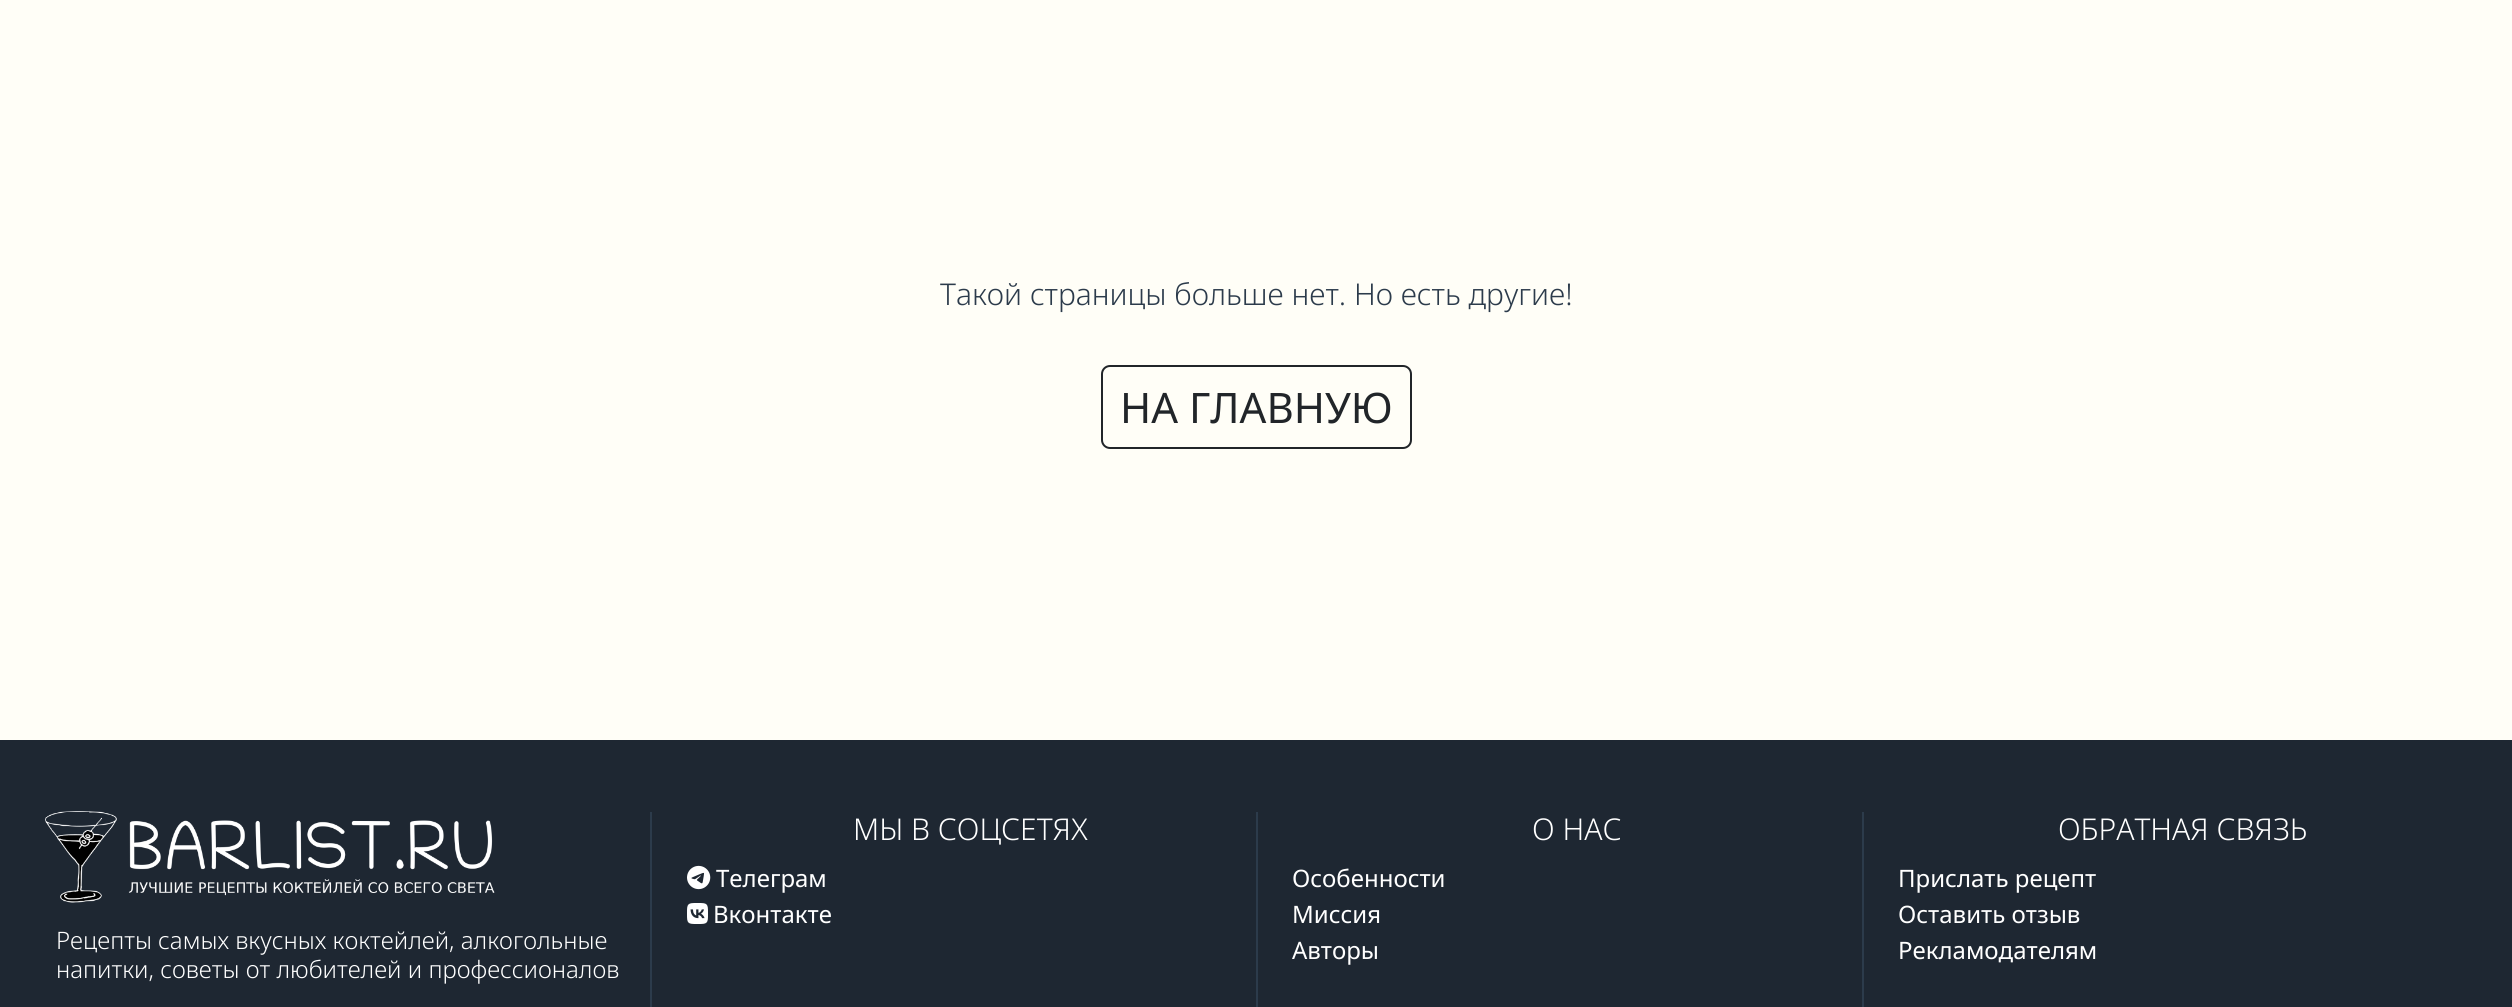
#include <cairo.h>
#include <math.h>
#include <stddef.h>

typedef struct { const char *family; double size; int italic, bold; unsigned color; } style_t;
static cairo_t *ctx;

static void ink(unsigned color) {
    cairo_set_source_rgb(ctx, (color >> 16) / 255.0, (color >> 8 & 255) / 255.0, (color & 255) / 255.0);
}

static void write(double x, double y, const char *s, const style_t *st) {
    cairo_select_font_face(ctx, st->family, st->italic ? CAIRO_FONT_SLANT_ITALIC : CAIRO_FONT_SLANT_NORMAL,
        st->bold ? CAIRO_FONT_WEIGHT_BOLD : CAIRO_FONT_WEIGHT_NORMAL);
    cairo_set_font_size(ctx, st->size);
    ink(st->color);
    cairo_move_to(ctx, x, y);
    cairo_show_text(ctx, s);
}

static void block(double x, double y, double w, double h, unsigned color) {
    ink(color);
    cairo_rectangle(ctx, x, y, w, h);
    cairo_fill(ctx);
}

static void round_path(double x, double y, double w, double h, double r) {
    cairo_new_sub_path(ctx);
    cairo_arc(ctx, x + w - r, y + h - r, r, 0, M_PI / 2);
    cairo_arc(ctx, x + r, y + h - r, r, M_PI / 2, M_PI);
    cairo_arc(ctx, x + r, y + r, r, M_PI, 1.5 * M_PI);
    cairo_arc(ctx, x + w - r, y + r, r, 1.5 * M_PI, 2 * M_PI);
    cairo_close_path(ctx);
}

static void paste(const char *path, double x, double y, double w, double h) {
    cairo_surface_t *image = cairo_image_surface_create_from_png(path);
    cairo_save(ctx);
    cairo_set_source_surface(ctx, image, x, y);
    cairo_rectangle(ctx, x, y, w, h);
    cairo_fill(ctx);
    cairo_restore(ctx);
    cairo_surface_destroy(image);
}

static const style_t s1 = {"Noto Sans Light", 30, 0, 0, 0x2c3b4b};
static const style_t s2 = {"Noto Sans", 42, 0, 0, 0x212529};
static const style_t s3 = {"Noto Sans Light", 24, 0, 0, 0xffffff};
static const style_t s4 = {"Noto Sans Light", 30, 0, 0, 0xffffff};
static const style_t s5 = {"Noto Sans", 24, 0, 0, 0xffffff};

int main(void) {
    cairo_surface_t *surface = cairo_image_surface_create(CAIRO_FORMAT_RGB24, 2512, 1007);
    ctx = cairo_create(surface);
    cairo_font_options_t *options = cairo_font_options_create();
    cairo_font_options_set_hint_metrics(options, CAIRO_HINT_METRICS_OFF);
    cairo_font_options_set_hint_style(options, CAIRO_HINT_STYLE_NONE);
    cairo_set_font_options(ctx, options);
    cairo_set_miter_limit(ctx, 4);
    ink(0xfffef7);
    cairo_paint(ctx);
    write(940, 305, "Такой страницы больше нет. Но есть другие!", &s1);
    round_path(1102, 366, 309, 82, 8);
    ink(0x212529);
    cairo_stroke(ctx);
    write(1120, 423, "НА ГЛАВНУЮ", &s2);
    block(0, 740, 2512, 267, 0x1e2732);
    block(650, 812, 2, 195, 0x2c3b4b);
    paste("pic1.png", 45, 811, 450, 92);
    write(56, 949, "Рецепты самых вкусных коктейлей, алкогольные", &s3);
    write(56, 978, "напитки, советы от любителей и профессионалов", &s3);
    block(1256, 812, 2, 195, 0x2c3b4b);
    write(853, 840, "МЫ В СОЦСЕТЯХ", &s4);
    paste("pic2.png", 687, 865, 24, 25);
    write(716, 887, "Телеграм", &s5);
    paste("pic3.png", 687, 903, 21, 21);
    write(713, 923, "Вконтакте", &s5);
    block(1862, 812, 2, 195, 0x2c3b4b);
    write(1532, 840, "О НАС", &s4);
    write(1292, 887, "Особенности", &s5);
    write(1292, 923, "Миссия", &s5);
    write(1292, 959, "Авторы", &s5);
    write(2058, 840, "ОБРАТНАЯ СВЯЗЬ", &s4);
    write(1898, 887, "Прислать рецепт", &s5);
    write(1898, 923, "Оставить отзыв", &s5);
    write(1898, 959, "Рекламодателям", &s5);
    cairo_surface_write_to_png(surface, "screenshot.png");
    cairo_font_options_destroy(options);
    cairo_destroy(ctx);
    cairo_surface_destroy(surface);
    return 0;
}
